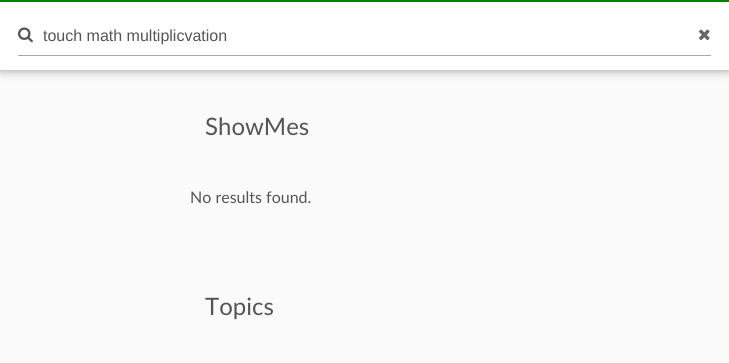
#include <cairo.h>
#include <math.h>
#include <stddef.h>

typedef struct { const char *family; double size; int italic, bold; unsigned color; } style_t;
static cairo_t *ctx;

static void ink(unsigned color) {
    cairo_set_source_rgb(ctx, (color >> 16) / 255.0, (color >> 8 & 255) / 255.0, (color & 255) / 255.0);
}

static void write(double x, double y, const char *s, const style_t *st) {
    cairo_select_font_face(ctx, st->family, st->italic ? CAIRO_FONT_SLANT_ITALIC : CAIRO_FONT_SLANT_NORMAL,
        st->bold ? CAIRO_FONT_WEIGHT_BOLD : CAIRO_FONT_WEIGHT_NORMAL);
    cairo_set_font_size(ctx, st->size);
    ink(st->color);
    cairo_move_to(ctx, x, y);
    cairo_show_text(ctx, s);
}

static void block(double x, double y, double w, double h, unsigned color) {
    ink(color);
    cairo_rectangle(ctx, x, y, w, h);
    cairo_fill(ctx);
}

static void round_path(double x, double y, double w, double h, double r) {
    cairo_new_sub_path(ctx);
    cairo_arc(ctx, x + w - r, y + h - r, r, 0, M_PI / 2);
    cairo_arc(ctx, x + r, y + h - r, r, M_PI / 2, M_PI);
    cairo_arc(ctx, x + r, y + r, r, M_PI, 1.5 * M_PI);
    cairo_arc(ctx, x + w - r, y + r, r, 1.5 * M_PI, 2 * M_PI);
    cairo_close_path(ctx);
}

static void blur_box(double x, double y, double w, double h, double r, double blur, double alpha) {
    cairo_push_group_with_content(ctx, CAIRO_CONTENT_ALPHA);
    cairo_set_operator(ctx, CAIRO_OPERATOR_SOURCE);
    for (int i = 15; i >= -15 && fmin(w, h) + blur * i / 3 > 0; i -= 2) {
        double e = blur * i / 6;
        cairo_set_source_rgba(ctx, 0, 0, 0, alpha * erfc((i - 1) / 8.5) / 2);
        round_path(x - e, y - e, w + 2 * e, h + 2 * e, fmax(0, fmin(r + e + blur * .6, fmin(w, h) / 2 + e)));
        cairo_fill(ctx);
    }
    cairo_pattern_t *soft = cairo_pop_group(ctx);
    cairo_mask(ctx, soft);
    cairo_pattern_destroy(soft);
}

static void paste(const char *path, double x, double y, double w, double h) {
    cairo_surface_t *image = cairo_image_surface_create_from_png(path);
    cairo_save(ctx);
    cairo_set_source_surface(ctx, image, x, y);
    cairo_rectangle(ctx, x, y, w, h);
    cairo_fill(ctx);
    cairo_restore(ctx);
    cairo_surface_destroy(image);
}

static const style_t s1 = {"Liberation Sans", 16, 0, 0, 0x555555};
static const style_t s2 = {"Lato", 24, 0, 0, 0x555555};
static const style_t s3 = {"Lato", 16, 0, 0, 0x555555};

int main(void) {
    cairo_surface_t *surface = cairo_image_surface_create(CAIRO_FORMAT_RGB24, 729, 363);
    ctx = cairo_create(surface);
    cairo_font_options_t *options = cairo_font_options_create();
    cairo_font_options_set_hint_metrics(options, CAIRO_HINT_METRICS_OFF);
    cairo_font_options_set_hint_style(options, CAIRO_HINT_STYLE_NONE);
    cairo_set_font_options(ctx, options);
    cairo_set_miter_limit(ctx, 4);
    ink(0xfafafa);
    cairo_paint(ctx);
    ink(0x000000);
    blur_box(0, 0, 729, 70, 0, 5, 0.4);
    block(0, 0, 729, 2, 0x008000);
    block(0, 2, 729, 68, 0xffffff);
    paste("pic1.png", 18, 27, 15, 16);
    block(18, 55, 693, 1, 0xaaaaaa);
    write(43, 41, "touch math multiplicvation", &s1);
    paste("pic2.png", 699, 29, 11, 12);
    write(205, 135, "ShowMes", &s2);
    write(190, 203, "No results found.", &s3);
    write(205, 315, "Topics", &s2);
    cairo_surface_write_to_png(surface, "screenshot.png");
    cairo_font_options_destroy(options);
    cairo_destroy(ctx);
    cairo_surface_destroy(surface);
    return 0;
}
